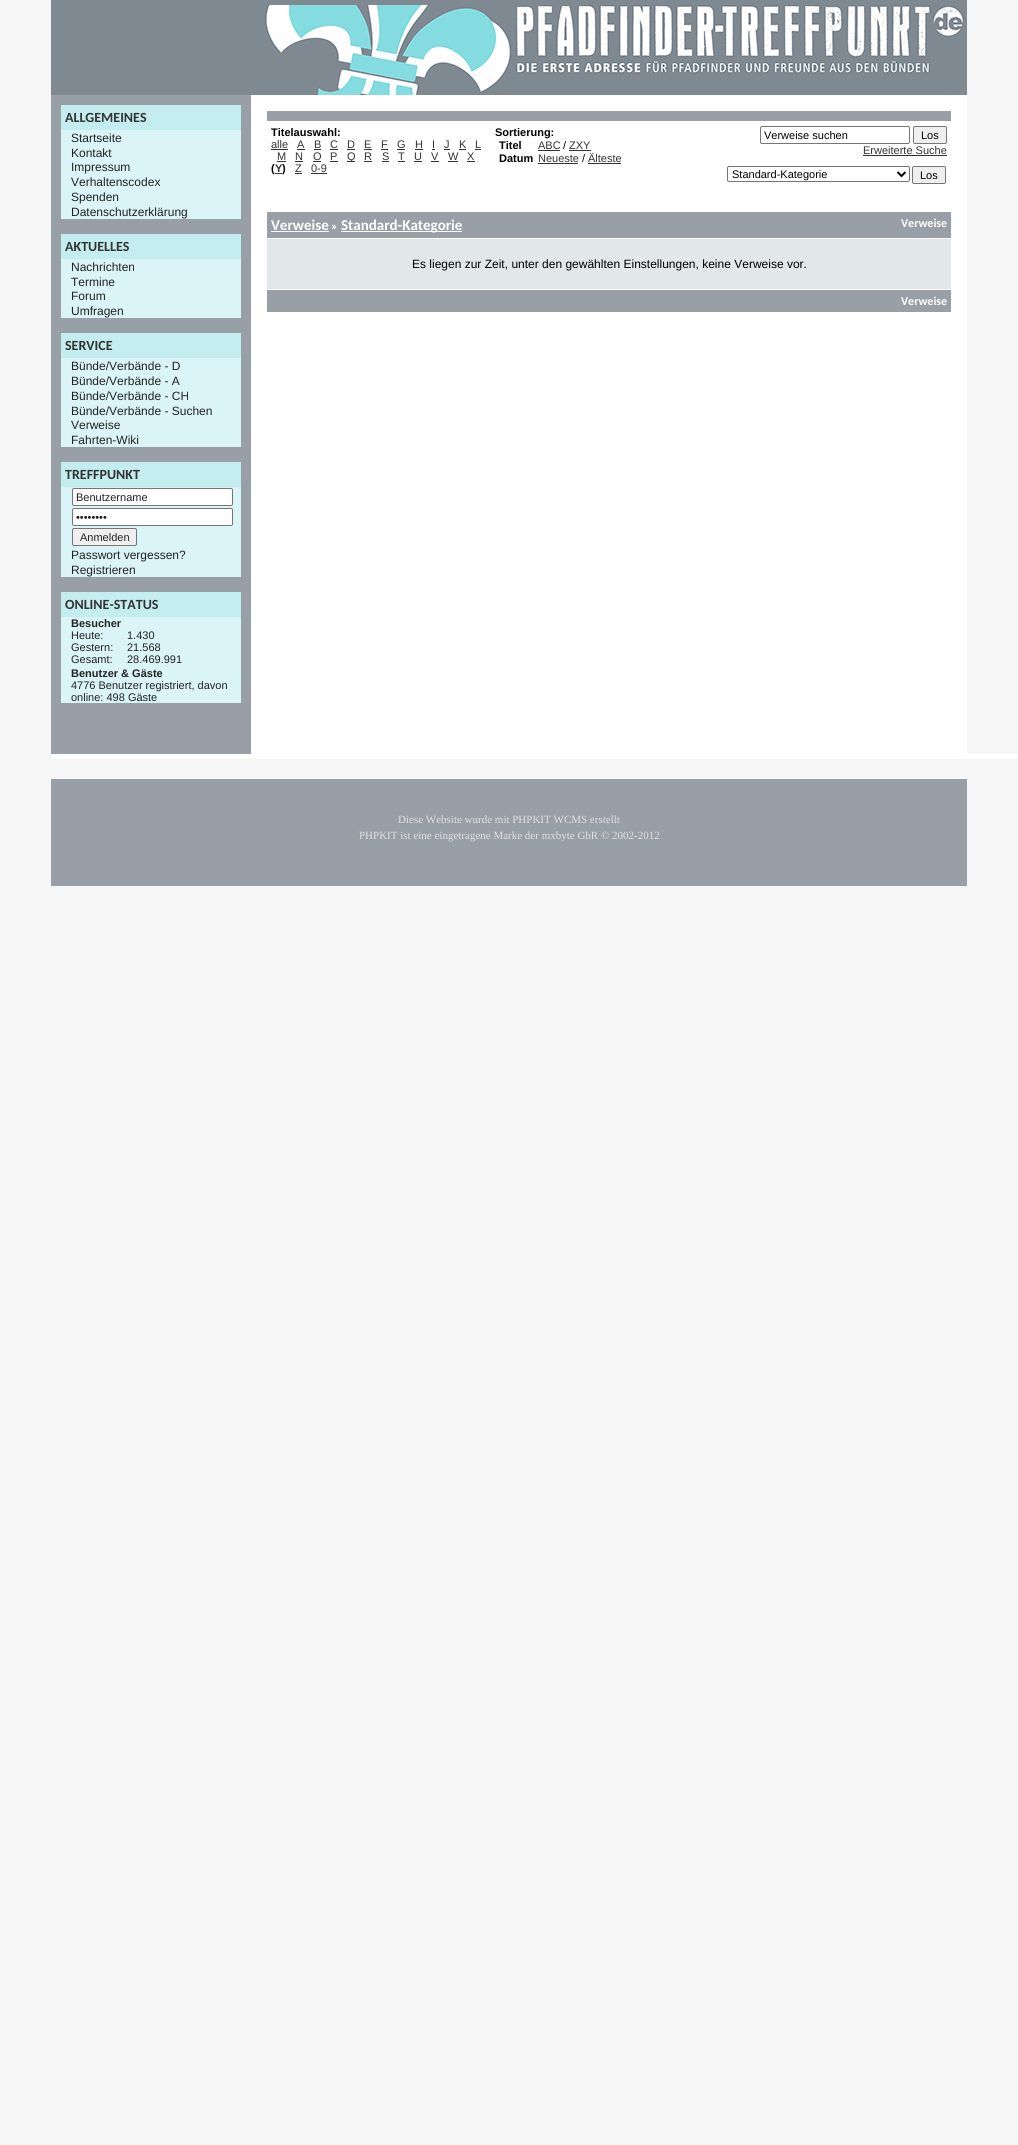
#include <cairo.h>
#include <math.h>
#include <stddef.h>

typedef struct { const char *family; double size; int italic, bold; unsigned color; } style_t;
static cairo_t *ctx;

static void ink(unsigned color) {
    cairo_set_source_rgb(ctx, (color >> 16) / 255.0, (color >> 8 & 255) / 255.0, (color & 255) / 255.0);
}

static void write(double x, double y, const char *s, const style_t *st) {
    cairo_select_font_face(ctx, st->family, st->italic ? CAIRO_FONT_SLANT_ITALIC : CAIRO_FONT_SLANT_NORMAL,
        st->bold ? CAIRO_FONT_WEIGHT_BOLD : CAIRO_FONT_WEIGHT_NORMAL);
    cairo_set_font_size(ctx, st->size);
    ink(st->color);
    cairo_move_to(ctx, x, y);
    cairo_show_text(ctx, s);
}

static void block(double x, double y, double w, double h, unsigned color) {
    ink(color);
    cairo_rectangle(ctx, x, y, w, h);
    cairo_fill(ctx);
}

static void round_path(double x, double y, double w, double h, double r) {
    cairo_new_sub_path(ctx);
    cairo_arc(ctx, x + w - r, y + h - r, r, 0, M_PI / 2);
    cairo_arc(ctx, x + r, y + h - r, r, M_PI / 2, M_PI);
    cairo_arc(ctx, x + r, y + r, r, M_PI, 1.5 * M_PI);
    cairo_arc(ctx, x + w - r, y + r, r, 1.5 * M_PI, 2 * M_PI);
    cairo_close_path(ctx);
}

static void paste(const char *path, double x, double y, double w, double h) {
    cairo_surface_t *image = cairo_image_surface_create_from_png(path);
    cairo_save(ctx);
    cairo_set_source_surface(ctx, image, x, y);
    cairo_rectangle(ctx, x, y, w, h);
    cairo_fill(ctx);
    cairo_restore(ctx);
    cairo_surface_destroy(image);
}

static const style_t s1 = {"Carlito", 14, 0, 1, 0x333333};
static const style_t s2 = {"Liberation Sans", 12, 0, 0, 0x222222};
static const style_t s3 = {"Liberation Sans", 11, 0, 0, 0x222222};
static const style_t s4 = {"Liberation Sans", 11, 0, 1, 0x222222};
static const style_t s5 = {"Liberation Sans", 11, 0, 1, 0x000000};
static const style_t s6 = {"Liberation Sans", 11, 0, 0, 0x333333};
static const style_t s7 = {"Liberation Sans", 11, 0, 1, 0x333333};
static const style_t s8 = {"Liberation Sans", 11, 0, 0, 0x000000};
static const style_t s9 = {"Carlito", 15, 0, 1, 0xffffff};
static const style_t s10 = {"Carlito", 12, 0, 1, 0xffffff};
static const style_t s11 = {"Liberation Sans", 12, 0, 0, 0x000000};
static const style_t s12 = {"Liberation Serif", 11, 0, 0, 0xe0e0e0};

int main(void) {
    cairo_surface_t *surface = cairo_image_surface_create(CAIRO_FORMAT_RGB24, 1018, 2145);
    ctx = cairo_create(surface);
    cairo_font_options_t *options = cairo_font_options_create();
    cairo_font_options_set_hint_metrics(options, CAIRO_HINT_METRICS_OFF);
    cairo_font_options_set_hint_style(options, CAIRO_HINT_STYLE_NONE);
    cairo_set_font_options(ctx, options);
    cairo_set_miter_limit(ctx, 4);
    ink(0xf6f6f6);
    cairo_paint(ctx);
    block(51, 0, 916, 95, 0x7e8992);
    paste("pic1.png", 265, 5, 699, 90);
    block(51, 95, 200, 659, 0x989fa7);
    block(61, 105, 180, 25, 0xc4edf0);
    write(65, 122, "ALLGEMEINES", &s1);
    block(61, 130, 180, 89, 0xdbf4f7);
    write(71, 142, "Startseite", &s2);
    write(71, 157, "Kontakt", &s2);
    write(71, 171, "Impressum", &s2);
    write(71, 186, "Verhaltenscodex", &s2);
    write(71, 201, "Spenden", &s2);
    write(71, 216, "Datenschutzerklärung", &s2);
    block(61, 234, 180, 25, 0xc4edf0);
    write(65, 251, "AKTUELLES", &s1);
    block(61, 259, 180, 59, 0xdbf4f7);
    write(71, 271, "Nachrichten", &s2);
    write(71, 286, "Termine", &s2);
    write(71, 300, "Forum", &s2);
    write(71, 315, "Umfragen", &s2);
    block(61, 333, 180, 25, 0xc4edf0);
    write(65, 350, "SERVICE", &s1);
    block(61, 358, 180, 89, 0xdbf4f7);
    write(71, 370, "Bünde/Verbände - D", &s2);
    write(71, 385, "Bünde/Verbände - A", &s2);
    write(71, 400, "Bünde/Verbände - CH", &s2);
    write(71, 415, "Bünde/Verbände - Suchen", &s2);
    write(71, 429, "Verweise", &s2);
    write(71, 444, "Fahrten-Wiki", &s2);
    block(61, 462, 180, 25, 0xc4edf0);
    write(65, 479, "TREFFPUNKT", &s1);
    block(61, 487, 180, 90, 0xdbf4f7);
    ink(0xffffff);
    round_path(72.5, 488.5, 160, 17, 1.5);
    cairo_fill_preserve(ctx);
    ink(0x767676);
    cairo_set_line_width(ctx, 1);
    cairo_stroke(ctx);
    write(76, 501, "Benutzername", &s3);
    ink(0xffffff);
    round_path(72.5, 508.5, 160, 17, 1.5);
    cairo_fill_preserve(ctx);
    ink(0x767676);
    cairo_stroke(ctx);
    write(76, 521, "••••••••", &s3);
    ink(0xefefef);
    round_path(72.5, 528.5, 64, 17, 1.5);
    cairo_fill_preserve(ctx);
    ink(0x767676);
    cairo_stroke(ctx);
    write(80, 541, "Anmelden", &s3);
    write(71, 559, "Passwort vergessen?", &s2);
    write(71, 574, "Registrieren", &s2);
    block(61, 592, 180, 25, 0xc4edf0);
    write(65, 609, "ONLINE-STATUS", &s1);
    block(61, 617, 180, 86, 0xdbf4f7);
    write(71, 627, "Besucher", &s4);
    write(71, 639, "Heute:", &s3);
    write(127, 639, "1.430", &s3);
    write(71, 651, "Gestern:", &s3);
    write(127, 651, "21.568", &s3);
    write(71, 663, "Gesamt:", &s3);
    write(127, 663, "28.469.991", &s3);
    write(71, 677, "Benutzer & Gäste", &s4);
    write(71, 689, "4776 Benutzer registriert, davon", &s3);
    write(71, 701, "online: 498 Gäste", &s3);
    block(251, 95, 716, 659, 0xffffff);
    block(267, 111, 684, 10, 0x989fa7);
    write(271, 136, "Titelauswahl:", &s5);
    write(271, 148, "alle", &s6);
    block(271, 149, 17, 1, 0x333333);
    write(297, 148, "A", &s6);
    block(297, 149, 8, 1, 0x333333);
    write(314, 148, "B", &s6);
    block(314, 149, 7, 1, 0x333333);
    write(330, 148, "C", &s6);
    block(330, 149, 8, 1, 0x333333);
    write(347, 148, "D", &s6);
    block(347, 149, 8, 1, 0x333333);
    write(364, 148, "E", &s6);
    block(364, 149, 8, 1, 0x333333);
    write(381, 148, "F", &s6);
    block(381, 149, 7, 1, 0x333333);
    write(397, 148, "G", &s6);
    block(397, 149, 8, 1, 0x333333);
    write(415, 148, "H", &s6);
    block(415, 149, 8, 1, 0x333333);
    write(432, 148, "I", &s6);
    block(432, 149, 3, 1, 0x333333);
    write(444, 148, "J", &s6);
    block(444, 149, 6, 1, 0x333333);
    write(459, 148, "K", &s6);
    block(459, 149, 7, 1, 0x333333);
    write(475, 148, "L", &s6);
    block(475, 149, 6, 1, 0x333333);
    write(277, 160, "M", &s6);
    block(277, 161, 9, 1, 0x333333);
    write(295, 160, "N", &s6);
    block(295, 161, 8, 1, 0x333333);
    write(313, 160, "O", &s6);
    block(313, 161, 8, 1, 0x333333);
    write(330, 160, "P", &s6);
    block(330, 161, 8, 1, 0x333333);
    block(347, 161, 8, 1, 0x333333);
    write(347, 160, "Q", &s6);
    write(364, 160, "R", &s6);
    block(364, 161, 8, 1, 0x333333);
    write(382, 160, "S", &s6);
    block(382, 161, 7, 1, 0x333333);
    write(398, 160, "T", &s6);
    block(398, 161, 7, 1, 0x333333);
    write(414, 160, "U", &s6);
    block(414, 161, 8, 1, 0x333333);
    write(431, 160, "V", &s6);
    block(431, 161, 8, 1, 0x333333);
    write(448, 160, "W", &s6);
    block(448, 161, 10, 1, 0x333333);
    write(467, 160, "X", &s6);
    block(467, 161, 8, 1, 0x333333);
    write(271, 172, "(", &s5);
    block(275, 173, 7, 1, 0x333333);
    write(275, 172, "Y", &s7);
    write(282, 172, ")", &s5);
    write(295, 172, "Z", &s6);
    block(295, 173, 7, 1, 0x333333);
    write(311, 172, "0-9", &s6);
    block(311, 173, 16, 1, 0x333333);
    write(495, 136, "Sortierung:", &s5);
    write(499, 149, "Titel", &s5);
    write(538, 149, "ABC", &s6);
    block(538, 150, 22, 1, 0x333333);
    write(563, 149, "/", &s8);
    write(569, 149, "ZXY", &s6);
    block(569, 150, 22, 1, 0x333333);
    write(499, 162, "Datum", &s5);
    write(538, 162, "Neueste", &s6);
    block(538, 163, 40, 1, 0x333333);
    write(582, 162, "/", &s8);
    write(588, 162, "Älteste", &s6);
    block(588, 163, 33, 1, 0x333333);
    round_path(760.5, 126.5, 149, 17, 1.5);
    ink(0x767676);
    cairo_stroke(ctx);
    write(764, 139, "Verweise suchen", &s8);
    ink(0xefefef);
    round_path(913.5, 126.5, 33, 17, 1.5);
    cairo_fill_preserve(ctx);
    ink(0x767676);
    cairo_stroke(ctx);
    write(921, 139, "Los", &s8);
    write(863, 154, "Erweiterte Suche", &s6);
    block(863, 155, 84, 1, 0x333333);
    round_path(727.5, 166.5, 182, 15, 1.5);
    ink(0x767676);
    cairo_stroke(ctx);
    cairo_new_path(ctx);
    cairo_move_to(ctx, 897.5, 172);
    cairo_line_to(ctx, 901.5, 176);
    cairo_line_to(ctx, 905.5, 172);
    ink(0x000000);
    cairo_set_line_width(ctx, 2);
    cairo_stroke(ctx);
    write(732, 178, "Standard-Kategorie", &s8);
    ink(0xefefef);
    round_path(912.5, 166.5, 33, 17, 1.5);
    cairo_fill_preserve(ctx);
    ink(0x767676);
    cairo_set_line_width(ctx, 1);
    cairo_stroke(ctx);
    write(920, 179, "Los", &s8);
    block(267, 212, 684, 26, 0x989fa7);
    write(271, 230, "Verweise", &s9);
    write(331, 230, "»", &s10);
    block(271, 231, 58, 1, 0xffffff);
    block(341, 231, 121, 1, 0xffffff);
    write(341, 230, "Standard-Kategorie", &s9);
    write(901, 227, "Verweise", &s10);
    block(267, 239, 684, 50, 0xe2e7ea);
    write(412, 268, "Es liegen zur Zeit, unter den gewählten Einstellungen, keine Verweise vor.", &s11);
    block(267, 290, 684, 22, 0x989fa7);
    write(901, 305, "Verweise", &s10);
    block(51, 754, 967, 5, 0xffffff);
    block(51, 779, 916, 107, 0x989fa7);
    write(398, 823, "Diese Website wurde mit PHPKIT WCMS erstellt", &s12);
    write(359, 839, "PHPKIT ist eine eingetragene Marke der mxbyte GbR © 2002-2012", &s12);
    cairo_surface_write_to_png(surface, "screenshot.png");
    cairo_font_options_destroy(options);
    cairo_destroy(ctx);
    cairo_surface_destroy(surface);
    return 0;
}
